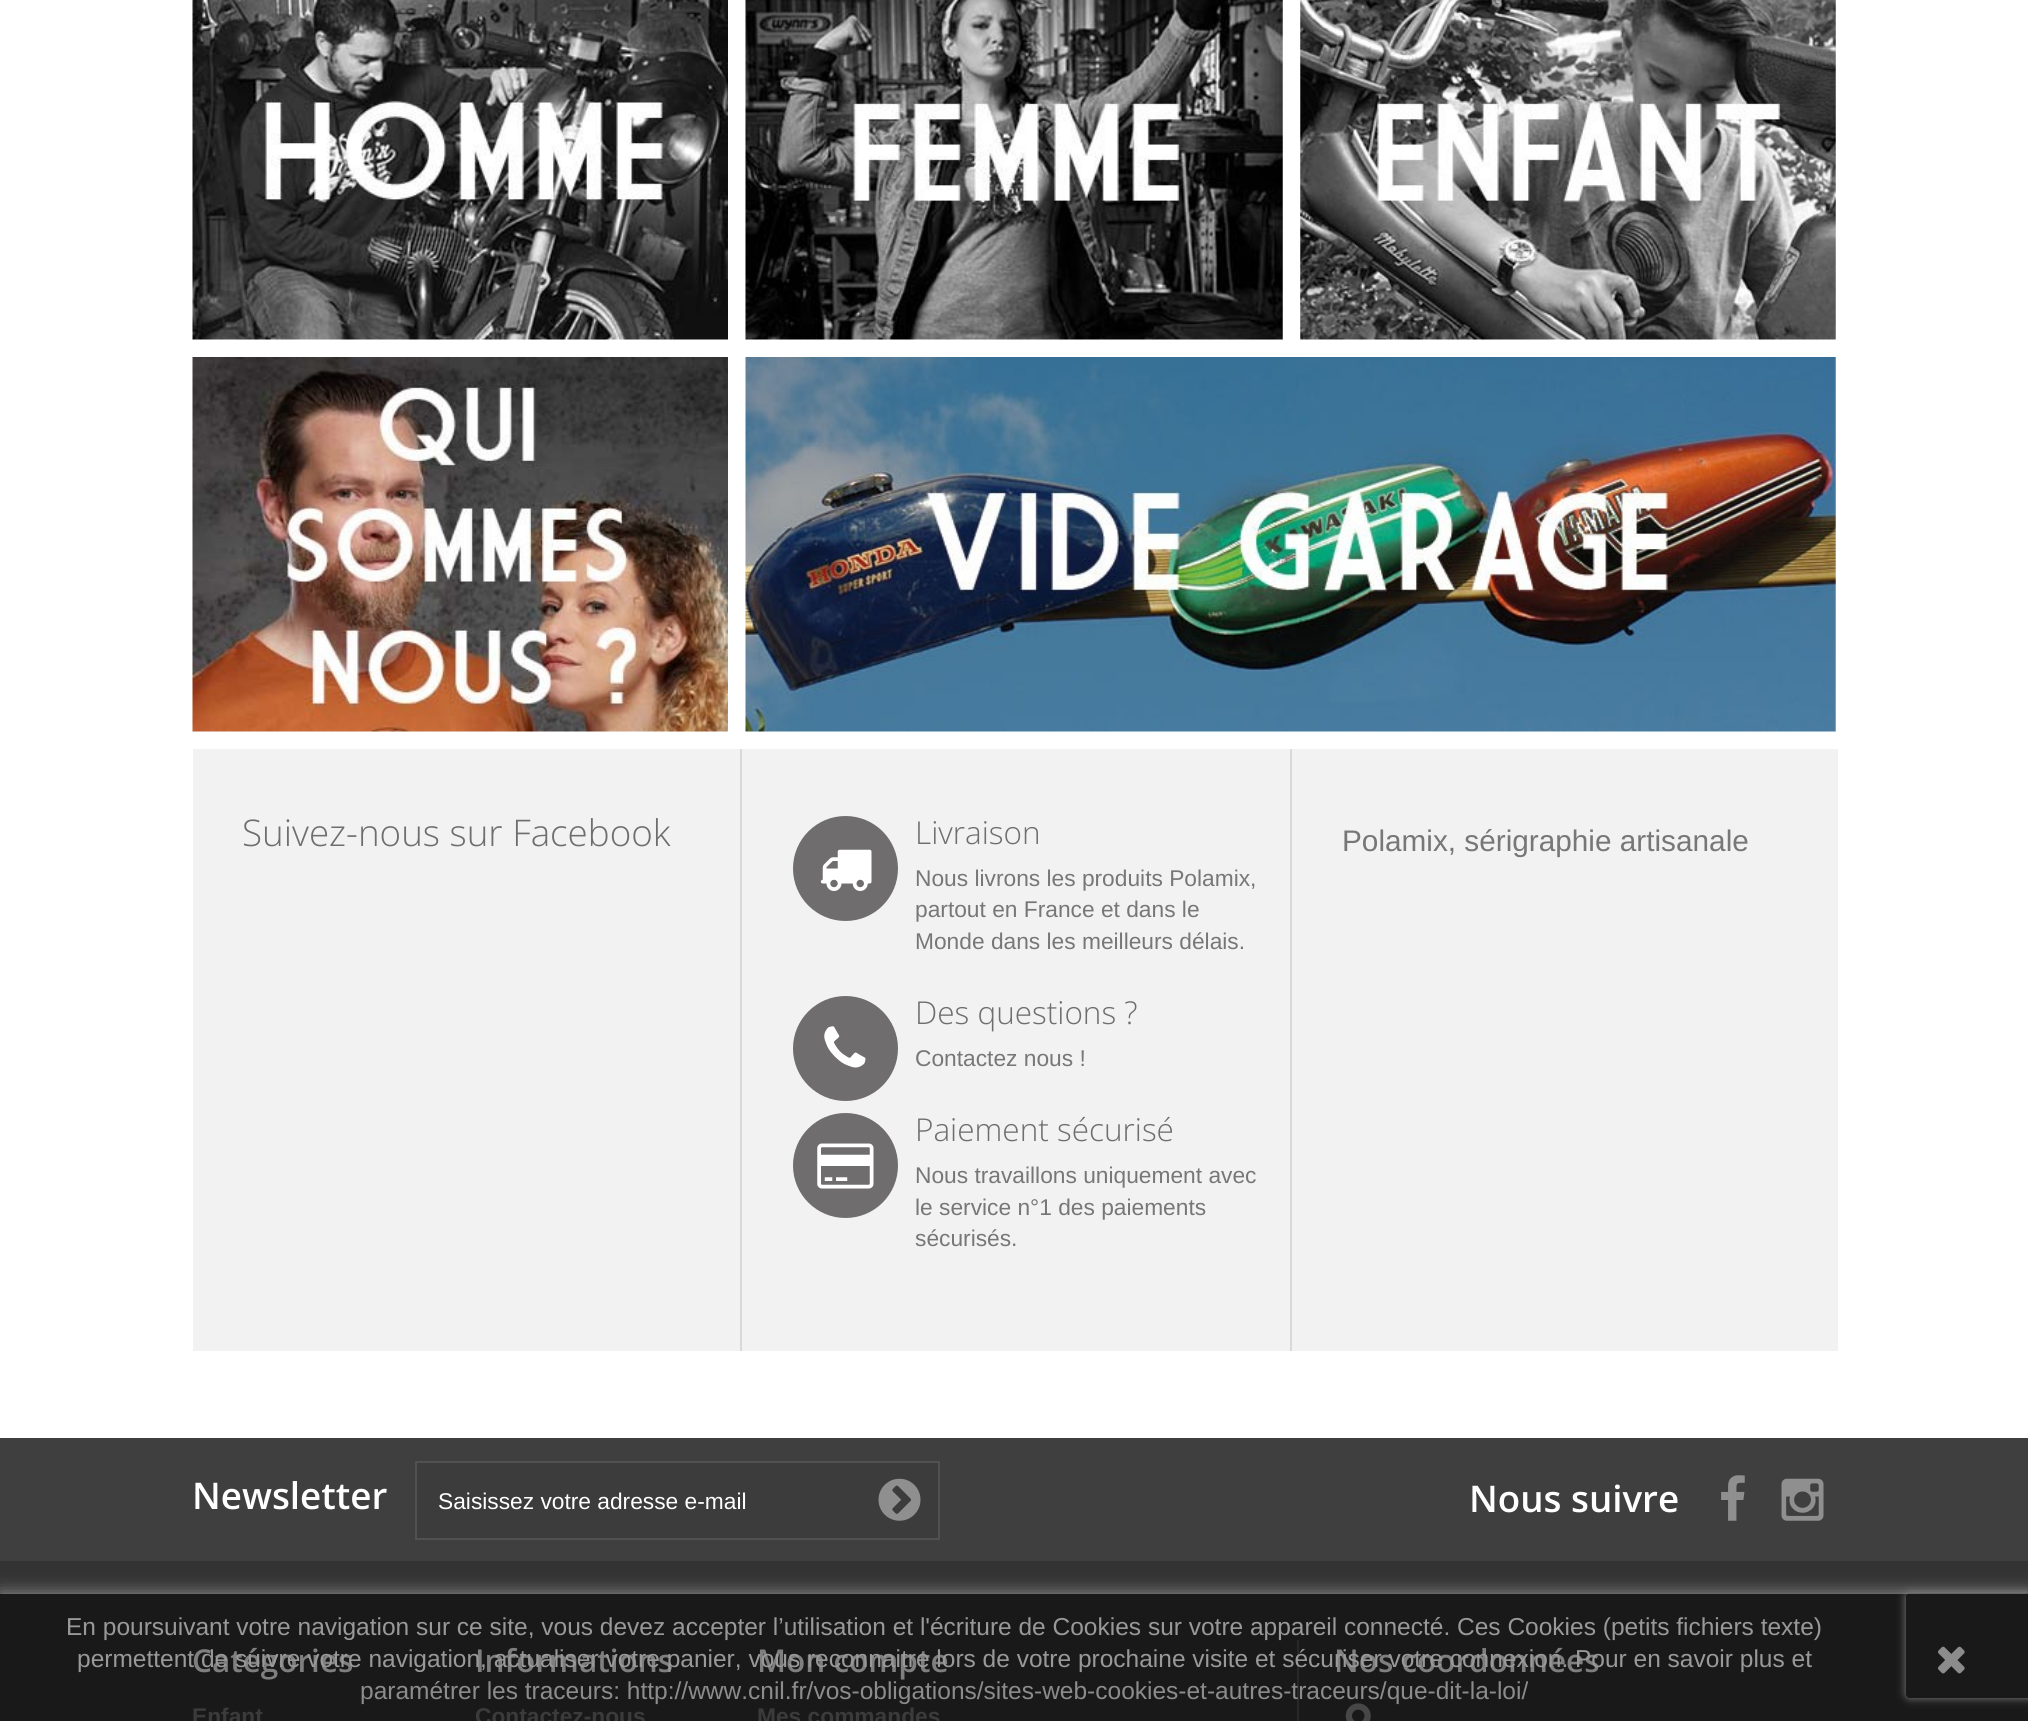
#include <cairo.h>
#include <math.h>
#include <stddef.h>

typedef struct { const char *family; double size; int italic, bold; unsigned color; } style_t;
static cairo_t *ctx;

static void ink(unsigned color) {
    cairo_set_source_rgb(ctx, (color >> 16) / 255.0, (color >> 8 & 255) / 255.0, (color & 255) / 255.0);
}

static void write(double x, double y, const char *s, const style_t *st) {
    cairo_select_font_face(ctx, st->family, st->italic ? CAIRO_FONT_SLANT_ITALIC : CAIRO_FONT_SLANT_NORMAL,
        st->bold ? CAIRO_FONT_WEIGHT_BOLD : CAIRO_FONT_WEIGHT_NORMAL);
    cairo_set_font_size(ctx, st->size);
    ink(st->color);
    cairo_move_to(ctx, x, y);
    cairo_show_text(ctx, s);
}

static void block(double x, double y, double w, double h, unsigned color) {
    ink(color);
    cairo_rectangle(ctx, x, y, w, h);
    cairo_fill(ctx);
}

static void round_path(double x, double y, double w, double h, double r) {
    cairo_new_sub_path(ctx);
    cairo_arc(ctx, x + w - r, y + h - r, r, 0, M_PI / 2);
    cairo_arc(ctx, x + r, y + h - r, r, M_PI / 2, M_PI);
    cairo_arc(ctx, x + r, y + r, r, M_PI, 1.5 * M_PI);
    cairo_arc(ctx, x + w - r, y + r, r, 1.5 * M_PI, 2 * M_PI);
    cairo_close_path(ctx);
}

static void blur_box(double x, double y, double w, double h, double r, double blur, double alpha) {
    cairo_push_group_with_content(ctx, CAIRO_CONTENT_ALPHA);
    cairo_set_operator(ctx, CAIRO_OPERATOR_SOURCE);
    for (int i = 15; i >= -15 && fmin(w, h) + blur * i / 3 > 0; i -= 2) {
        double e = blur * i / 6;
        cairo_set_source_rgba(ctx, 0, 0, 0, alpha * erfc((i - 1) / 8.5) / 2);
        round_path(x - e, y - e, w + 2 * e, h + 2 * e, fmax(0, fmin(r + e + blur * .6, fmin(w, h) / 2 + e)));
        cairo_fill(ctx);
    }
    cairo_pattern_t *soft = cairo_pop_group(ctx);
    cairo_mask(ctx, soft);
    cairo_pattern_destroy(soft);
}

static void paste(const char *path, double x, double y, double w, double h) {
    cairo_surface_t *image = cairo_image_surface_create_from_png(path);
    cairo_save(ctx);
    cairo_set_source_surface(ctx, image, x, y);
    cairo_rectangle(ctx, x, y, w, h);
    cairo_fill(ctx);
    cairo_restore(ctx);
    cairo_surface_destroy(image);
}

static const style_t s1 = {"Open Sans Light", 36.75, 0, 0, 0x6f6d6d};
static const style_t s2 = {"Open Sans Light", 31.5, 0, 0, 0x6f6d6d};
static const style_t s3 = {"Liberation Sans", 22.75, 0, 0, 0x777777};
static const style_t s4 = {"Liberation Sans", 29.75, 0, 0, 0x777777};
static const style_t s5 = {"Open Sans SemiBold", 36.75, 0, 0, 0xffffff};
static const style_t s6 = {"Liberation Sans", 22.75, 0, 0, 0xffffff};
static const style_t s7 = {"Open Sans SemiBold", 31.5, 0, 0, 0xffffff};
static const style_t s8 = {"Liberation Sans", 22.75, 0, 1, 0x777777};
static const style_t s9 = {"Liberation Sans", 24.5, 0, 0, 0x999999};
static const style_t s10 = {"Liberation Sans", 24.5, 0, 0, 0x8c8c8c};

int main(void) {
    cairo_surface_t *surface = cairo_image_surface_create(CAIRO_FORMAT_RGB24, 2028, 1721);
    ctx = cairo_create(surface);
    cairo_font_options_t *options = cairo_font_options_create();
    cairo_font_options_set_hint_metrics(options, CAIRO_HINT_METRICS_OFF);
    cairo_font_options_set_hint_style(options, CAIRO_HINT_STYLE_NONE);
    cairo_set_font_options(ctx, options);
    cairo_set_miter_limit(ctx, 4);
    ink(0xffffff);
    cairo_paint(ctx);
    paste("pic1.png", 192, 0, 536, 340);
    paste("pic2.png", 745, 0, 538, 340);
    paste("pic3.png", 1300, 0, 536, 340);
    paste("pic4.png", 192, 357, 536, 375);
    paste("pic5.png", 745, 357, 1091, 375);
    block(193, 749, 547, 602, 0xf2f2f2);
    write(242, 846, "Suivez-nous sur Facebook", &s1);
    block(742, 749, 1096, 602, 0xf2f2f2);
    block(740, 749, 2, 602, 0xd9d9d9);
    ink(0x6f6d6d);
    cairo_new_path(ctx);
    cairo_arc(ctx, 845.5, 868.5, 52.5, 0, 2 * M_PI);
    cairo_fill(ctx);
    paste("pic6.png", 820, 849, 52, 42);
    write(915, 844, "Livraison", &s2);
    write(915, 886, "Nous livrons les produits Polamix,", &s3);
    write(915, 917, "partout en France et dans le", &s3);
    write(915, 949, "Monde dans les meilleurs délais.", &s3);
    ink(0x6f6d6d);
    cairo_new_path(ctx);
    cairo_arc(ctx, 845.5, 1048.5, 52.5, 0, 2 * M_PI);
    cairo_fill(ctx);
    paste("pic7.png", 824, 1026, 42, 42);
    write(915, 1024, "Des questions ?", &s2);
    write(915, 1066, "Contactez nous !", &s3);
    ink(0x6f6d6d);
    cairo_new_path(ctx);
    cairo_arc(ctx, 845.5, 1165.5, 52.5, 0, 2 * M_PI);
    cairo_fill(ctx);
    paste("pic8.png", 817, 1143, 57, 46);
    write(915, 1141, "Paiement sécurisé", &s2);
    write(915, 1183, "Nous travaillons uniquement avec", &s3);
    write(915, 1215, "le service n°1 des paiements", &s3);
    write(915, 1246, "sécurisés.", &s3);
    block(1290, 749, 2, 602, 0xd9d9d9);
    write(1342, 851, "Polamix, sérigraphie artisanale", &s4);
    block(0, 1561, 2028, 160, 0x333333);
    block(0, 1438, 2028, 123, 0x3f3f3f);
    write(192, 1509, "Newsletter", &s5);
    ink(0x3c3c3c);
    cairo_rectangle(ctx, 416, 1462, 523, 77);
    cairo_fill_preserve(ctx);
    ink(0x515151);
    cairo_stroke(ctx);
    write(438, 1509, "Saisissez votre adresse e-mail", &s6);
    paste("pic9.png", 878, 1478, 43, 43);
    write(1469, 1512, "Nous suivre", &s5);
    paste("pic10.png", 1721, 1475, 24, 46);
    paste("pic11.png", 1781, 1478, 43, 43);
    block(1297, 1640, 2, 81, 0x515151);
    paste("pic13.png", 1345, 1703, 26, 18);
    cairo_save(ctx);
    cairo_set_fill_rule(ctx, CAIRO_FILL_RULE_EVEN_ODD);
    cairo_new_path(ctx);
    cairo_move_to(ctx, 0, 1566);
    cairo_line_to(ctx, 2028, 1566);
    cairo_line_to(ctx, 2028, 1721);
    cairo_line_to(ctx, 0, 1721);
    cairo_close_path(ctx);
    cairo_move_to(ctx, 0, 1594);
    cairo_line_to(ctx, 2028, 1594);
    cairo_line_to(ctx, 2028, 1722);
    cairo_line_to(ctx, 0, 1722);
    cairo_close_path(ctx);
    cairo_clip(ctx);
    ink(0x999999);
    blur_box(0, 1594, 2028, 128, 0, 9, 1);
    cairo_restore(ctx);
    write(192, 1672, "Catégories", &s7);
    write(192, 1724, "Enfant", &s8);
    write(475, 1672, "Informations", &s7);
    write(475, 1724, "Contactez-nous", &s8);
    write(757, 1672, "Mon compte", &s7);
    write(757, 1724, "Mes commandes", &s8);
    write(1334, 1672, "Nos coordonnées", &s7);
    cairo_set_source_rgba(ctx, 0, 0, 0, 0.5);
    cairo_rectangle(ctx, 0, 1594, 2028, 127);
    cairo_fill(ctx);
    write(66, 1635, "En poursuivant votre navigation sur ce site, vous devez accepter l’utilisation et l'écriture de Cookies sur votre appareil connecté. Ces Cookies (petits fichiers texte)", &s9);
    write(77, 1667, "permettent de suivre votre navigation, actualiser votre panier, vous reconnaitre lors de votre prochaine visite et sécuriser votre connexion. Pour en savoir plus et", &s9);
    write(360, 1699, "paramétrer les traceurs: http://www.cnil.fr/vos-obligations/sites-web-cookies-et-autres-traceurs/que-dit-la-loi/", &s10);
    paste("pic12.png", 1938, 1646, 27, 28);
    cairo_save(ctx);
    cairo_set_fill_rule(ctx, CAIRO_FILL_RULE_EVEN_ODD);
    cairo_new_path(ctx);
    cairo_move_to(ctx, 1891, 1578);
    cairo_line_to(ctx, 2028, 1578);
    cairo_line_to(ctx, 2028, 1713);
    cairo_line_to(ctx, 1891, 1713);
    cairo_close_path(ctx);
    cairo_move_to(ctx, 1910, 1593);
    cairo_line_to(ctx, 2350, 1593);
    cairo_curve_to(ctx, 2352, 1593, 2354, 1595, 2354, 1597);
    cairo_line_to(ctx, 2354, 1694);
    cairo_curve_to(ctx, 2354, 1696, 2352, 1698, 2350, 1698);
    cairo_line_to(ctx, 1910, 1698);
    cairo_curve_to(ctx, 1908, 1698, 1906, 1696, 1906, 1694);
    cairo_line_to(ctx, 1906, 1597);
    cairo_curve_to(ctx, 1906, 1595, 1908, 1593, 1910, 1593);
    cairo_close_path(ctx);
    cairo_clip(ctx);
    ink(0x808080);
    blur_box(1906, 1593, 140, 105, 4, 4.5, 1);
    cairo_restore(ctx);
    cairo_surface_write_to_png(surface, "screenshot.png");
    cairo_font_options_destroy(options);
    cairo_destroy(ctx);
    cairo_surface_destroy(surface);
    return 0;
}
